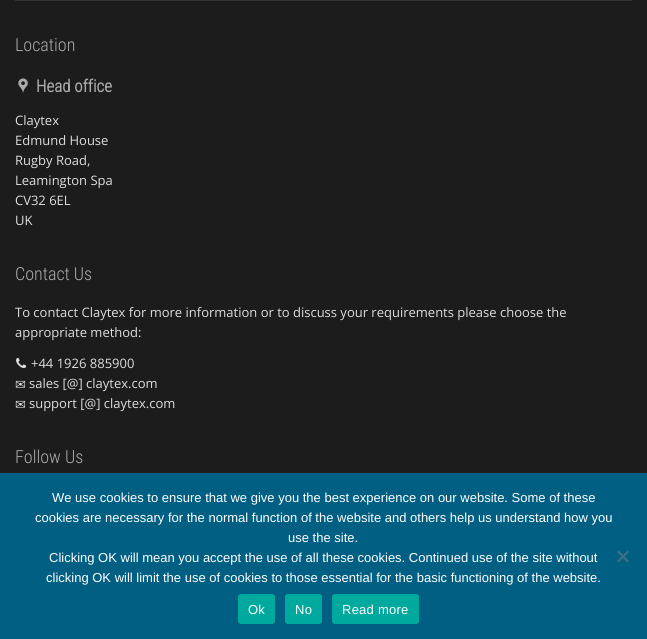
#include <cairo.h>
#include <math.h>
#include <stddef.h>

typedef struct { const char *family; double size; int italic, bold; unsigned color; } style_t;
static cairo_t *ctx;

static void ink(unsigned color) {
    cairo_set_source_rgb(ctx, (color >> 16) / 255.0, (color >> 8 & 255) / 255.0, (color & 255) / 255.0);
}

static void write(double x, double y, const char *s, const style_t *st) {
    cairo_select_font_face(ctx, st->family, st->italic ? CAIRO_FONT_SLANT_ITALIC : CAIRO_FONT_SLANT_NORMAL,
        st->bold ? CAIRO_FONT_WEIGHT_BOLD : CAIRO_FONT_WEIGHT_NORMAL);
    cairo_set_font_size(ctx, st->size);
    ink(st->color);
    cairo_move_to(ctx, x, y);
    cairo_show_text(ctx, s);
}

static void write_spaced(double x, double y, const char *s, double letter, double word) {
    cairo_move_to(ctx, x, y);
    while (*s) {
        char ch[5] = {0};
        int n = 0;
        do ch[n++] = *s++; while ((*s & 0xC0) == 0x80);
        cairo_show_text(ctx, ch);
        cairo_rel_move_to(ctx, letter + word * (*ch == ' '), 0);
    }
}

static void block(double x, double y, double w, double h, unsigned color) {
    ink(color);
    cairo_rectangle(ctx, x, y, w, h);
    cairo_fill(ctx);
}

static void round_path(double x, double y, double w, double h, double r) {
    cairo_new_sub_path(ctx);
    cairo_arc(ctx, x + w - r, y + h - r, r, 0, M_PI / 2);
    cairo_arc(ctx, x + r, y + h - r, r, M_PI / 2, M_PI);
    cairo_arc(ctx, x + r, y + r, r, M_PI, 1.5 * M_PI);
    cairo_arc(ctx, x + w - r, y + r, r, 1.5 * M_PI, 2 * M_PI);
    cairo_close_path(ctx);
}

static void paste(const char *path, double x, double y, double w, double h) {
    cairo_surface_t *image = cairo_image_surface_create_from_png(path);
    cairo_save(ctx);
    cairo_set_source_surface(ctx, image, x, y);
    cairo_rectangle(ctx, x, y, w, h);
    cairo_fill(ctx);
    cairo_restore(ctx);
    cairo_surface_destroy(image);
}

static const style_t s1 = {"Roboto Condensed Light", 18, 0, 0, 0xaaaaaa};
static const style_t s2 = {"Roboto Condensed", 17, 0, 1, 0xaaaaaa};
static const style_t s3 = {"Open Sans", 13, 0, 0, 0xdddddd};
static const style_t s4 = {"DejaVu Sans", 13, 0, 0, 0xdddddd};
static const style_t s5 = {"Liberation Sans", 13, 0, 0, 0xffffff};

int main(void) {
    cairo_surface_t *surface = cairo_image_surface_create(CAIRO_FORMAT_RGB24, 647, 639);
    ctx = cairo_create(surface);
    cairo_font_options_t *options = cairo_font_options_create();
    cairo_font_options_set_hint_metrics(options, CAIRO_HINT_METRICS_OFF);
    cairo_font_options_set_hint_style(options, CAIRO_HINT_STYLE_NONE);
    cairo_set_font_options(ctx, options);
    cairo_set_miter_limit(ctx, 4);
    ink(0x1c1c1c);
    cairo_paint(ctx);
    block(15, 0, 617, 1, 0x333333);
    write(15, 51, "Location", &s1);
    paste("pic1.png", 18, 78, 10, 16);
    write(36, 92, "Head office", &s2);
    write(15, 125, "Claytex", &s3);
    write(15, 145, "Edmund House", &s3);
    write(15, 165, "Rugby Road,", &s3);
    write(15, 185, "Leamington Spa", &s3);
    write(15, 205, "CV32 6EL", &s3);
    write(15, 225, "UK", &s3);
    write(15, 280, "Contact Us", &s1);
    write(15, 317, "To contact Claytex for more information or to discuss your requirements please choose the", &s3);
    write(15, 337, "appropriate method:", &s3);
    paste("pic2.png", 16, 357, 11, 12);
    write(31, 368, "+44 1926 885900", &s3);
    write(15, 389, "✉", &s4);
    write(29, 388, "sales [@] claytex.com", &s3);
    write(15, 409, "✉", &s4);
    write(29, 408, "support [@] claytex.com", &s3);
    write(15, 463, "Follow Us", &s1);
    block(0, 473, 647, 166, 0x005f83);
    write(52, 502, "We use cookies to ensure that we give you the best experience on our website. Some of these", &s5);
    write(35, 522, "cookies are necessary for the normal function of the website and others help us understand how you", &s5);
    write(288, 542, "use the site.", &s5);
    write(49, 562, "Clicking OK will mean you accept the use of all these cookies. Continued use of the site without", &s5);
    write(46, 582, "clicking OK will limit the use of cookies to those essential for the basic functioning of the website.", &s5);
    ink(0x407082);
    cairo_new_path(ctx);
    cairo_move_to(ctx, 627.5, 550.5);
    cairo_line_to(ctx, 629, 552);
    cairo_line_to(ctx, 618.5, 562.5);
    cairo_line_to(ctx, 617, 561);
    cairo_close_path(ctx);
    cairo_fill(ctx);
    cairo_new_path(ctx);
    cairo_move_to(ctx, 617, 552);
    cairo_line_to(ctx, 618.5, 550.5);
    cairo_line_to(ctx, 629, 561);
    cairo_line_to(ctx, 627.5, 562.5);
    cairo_close_path(ctx);
    cairo_fill(ctx);
    ink(0x00a99d);
    round_path(238, 594, 37, 30, 3);
    cairo_fill(ctx);
    ink(0xffffff);
    write_spaced(248, 614, "Ok", 0.25, 0);
    ink(0x00a99d);
    round_path(285, 594, 37, 30, 3);
    cairo_fill(ctx);
    ink(0xffffff);
    write_spaced(295, 614, "No", 0.25, 0);
    ink(0x00a99d);
    round_path(332, 594, 87, 30, 3);
    cairo_fill(ctx);
    ink(0xffffff);
    write_spaced(342, 614, "Read more", 0.25, 0);
    cairo_surface_write_to_png(surface, "screenshot.png");
    cairo_font_options_destroy(options);
    cairo_destroy(ctx);
    cairo_surface_destroy(surface);
    return 0;
}
